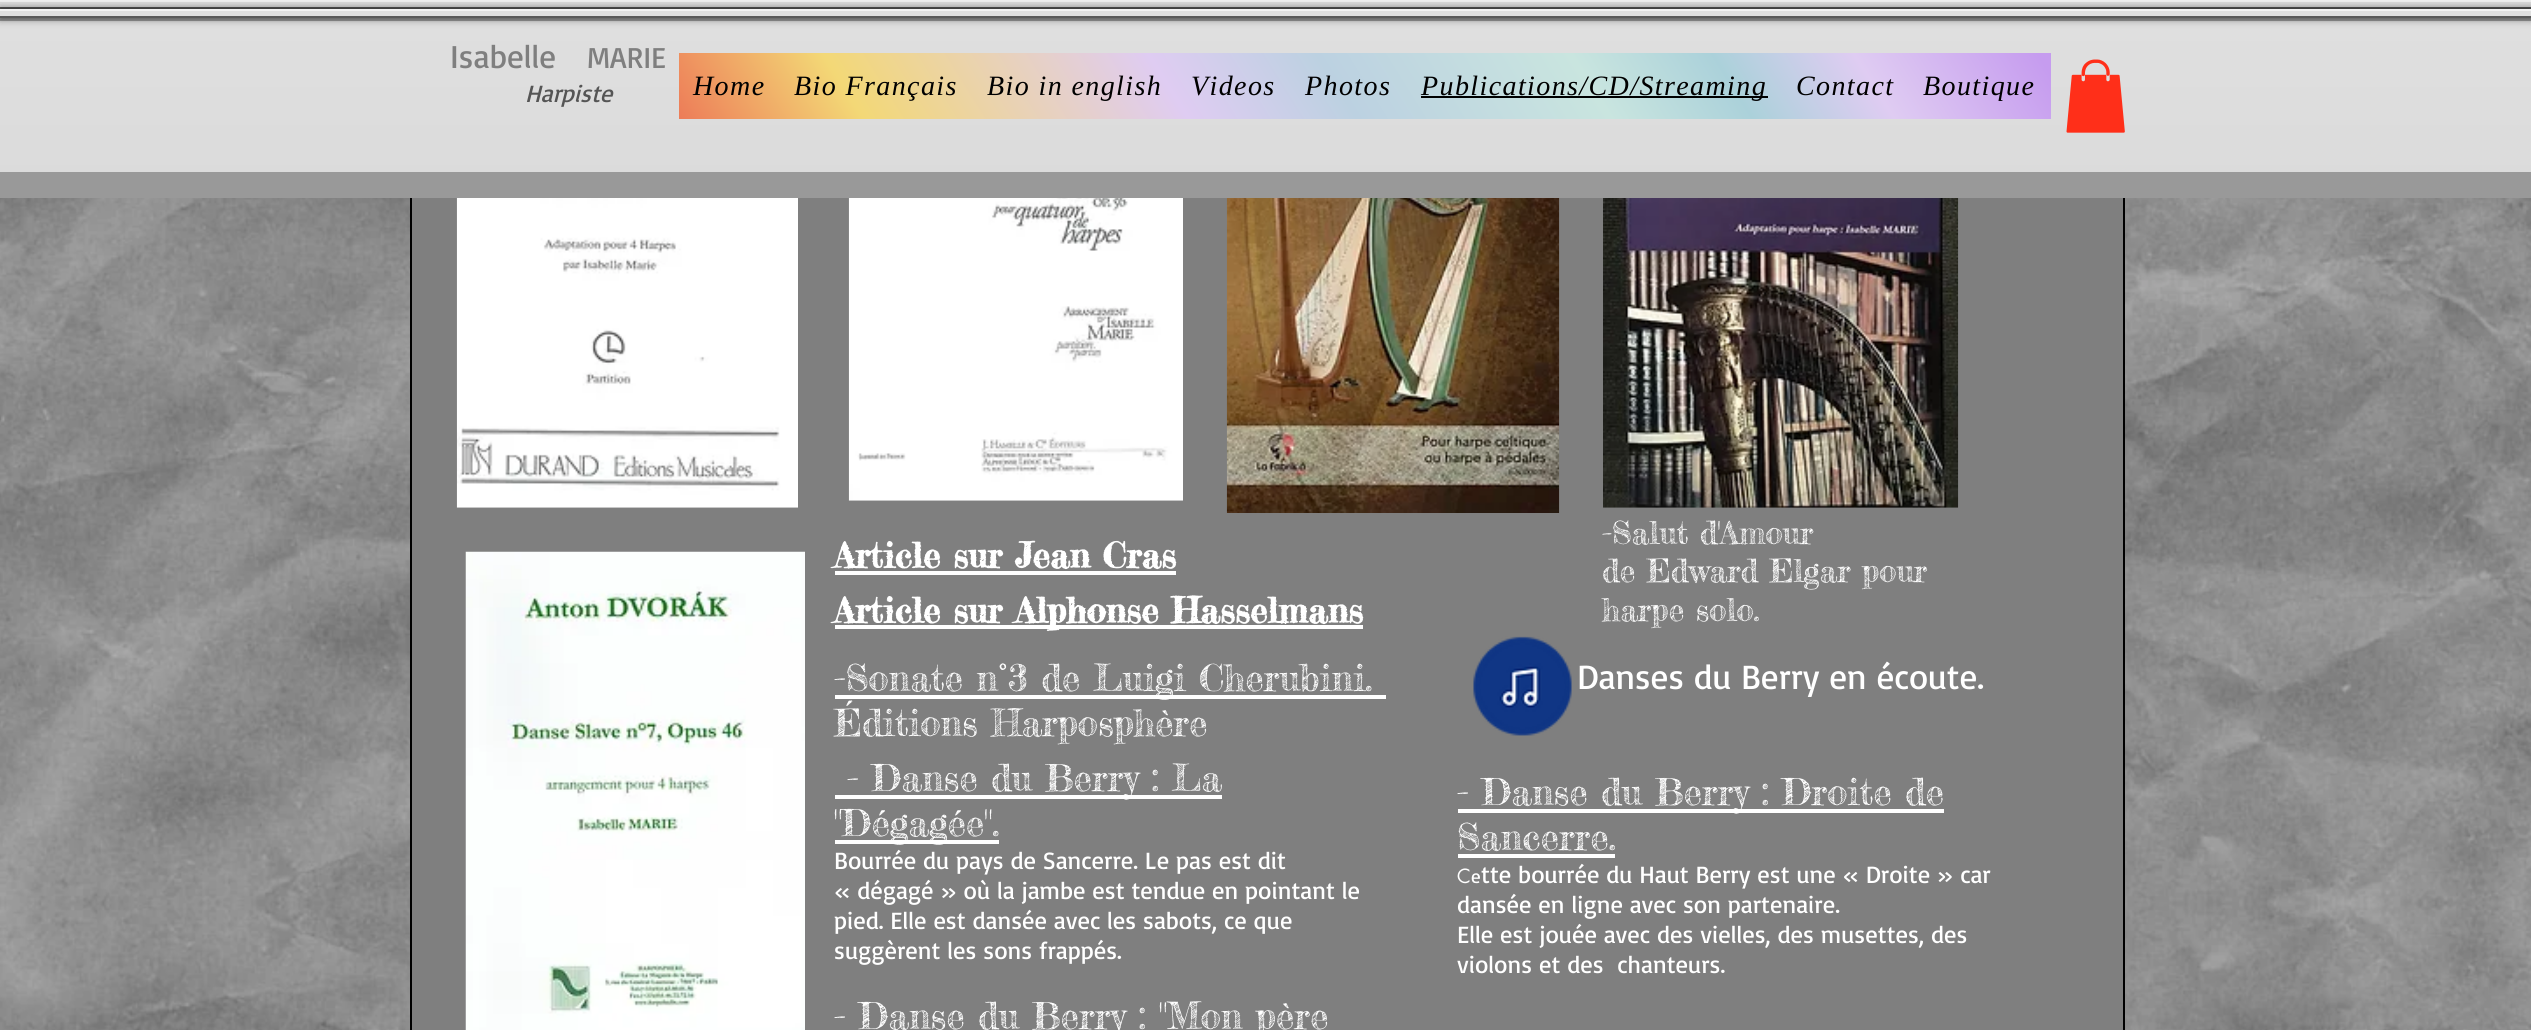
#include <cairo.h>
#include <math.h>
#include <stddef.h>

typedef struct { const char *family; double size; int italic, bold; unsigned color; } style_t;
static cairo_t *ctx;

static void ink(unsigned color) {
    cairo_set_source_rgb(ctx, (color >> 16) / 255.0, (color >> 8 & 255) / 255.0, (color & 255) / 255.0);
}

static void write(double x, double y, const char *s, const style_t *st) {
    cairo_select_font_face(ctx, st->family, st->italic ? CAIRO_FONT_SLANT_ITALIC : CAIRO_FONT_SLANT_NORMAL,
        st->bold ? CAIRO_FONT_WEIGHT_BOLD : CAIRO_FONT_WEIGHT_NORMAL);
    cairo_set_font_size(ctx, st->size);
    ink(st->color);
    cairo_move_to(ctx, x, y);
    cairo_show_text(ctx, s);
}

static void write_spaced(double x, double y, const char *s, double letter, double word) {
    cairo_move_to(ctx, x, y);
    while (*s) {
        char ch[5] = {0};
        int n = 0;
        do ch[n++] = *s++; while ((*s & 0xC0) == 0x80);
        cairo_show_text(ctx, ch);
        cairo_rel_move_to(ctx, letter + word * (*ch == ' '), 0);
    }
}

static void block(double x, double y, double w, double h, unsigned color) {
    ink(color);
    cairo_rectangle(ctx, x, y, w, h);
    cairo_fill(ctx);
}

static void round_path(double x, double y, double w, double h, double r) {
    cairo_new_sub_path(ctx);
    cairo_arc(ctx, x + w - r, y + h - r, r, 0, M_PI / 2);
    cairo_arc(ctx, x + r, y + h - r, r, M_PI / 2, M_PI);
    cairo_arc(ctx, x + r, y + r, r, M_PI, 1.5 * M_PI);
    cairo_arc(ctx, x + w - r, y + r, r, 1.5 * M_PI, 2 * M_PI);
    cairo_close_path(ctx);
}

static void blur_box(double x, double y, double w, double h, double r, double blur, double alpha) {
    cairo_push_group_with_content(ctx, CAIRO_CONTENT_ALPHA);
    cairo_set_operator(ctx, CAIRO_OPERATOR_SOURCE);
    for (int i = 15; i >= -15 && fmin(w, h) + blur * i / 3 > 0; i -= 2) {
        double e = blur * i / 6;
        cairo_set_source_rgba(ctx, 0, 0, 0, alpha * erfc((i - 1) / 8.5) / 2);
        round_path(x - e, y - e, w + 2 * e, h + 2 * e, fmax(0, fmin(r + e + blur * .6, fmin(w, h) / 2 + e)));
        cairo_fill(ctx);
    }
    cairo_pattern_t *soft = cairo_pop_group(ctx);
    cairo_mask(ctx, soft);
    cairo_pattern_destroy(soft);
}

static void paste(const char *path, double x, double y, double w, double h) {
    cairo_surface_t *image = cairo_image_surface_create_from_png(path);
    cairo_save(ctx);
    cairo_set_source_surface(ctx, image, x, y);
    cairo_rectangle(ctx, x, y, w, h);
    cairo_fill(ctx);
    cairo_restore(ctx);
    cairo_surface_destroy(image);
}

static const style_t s1 = {"Basic", 33, 0, 0, 0x7f7f7f};
static const style_t s2 = {"Basic", 30, 0, 0, 0x7f7f7f};
static const style_t s3 = {"Basic", 24.5, 1, 0, 0x555555};
static const style_t s4 = {"Fredericka the Great", 35, 0, 1, 0xffffff};
static const style_t s5 = {"Fredericka the Great", 31.5, 0, 0, 0xffffff};
static const style_t s6 = {"Fredericka the Great", 36.75, 0, 0, 0xffffff};
static const style_t s7 = {"Basic", 35, 0, 0, 0xffffff};
static const style_t s8 = {"Basic", 24.5, 0, 0, 0xffffff};
static const style_t s9 = {"futura", 19, 0, 0, 0xffffff};
static const style_t s10 = {"Basic", 19, 0, 0, 0xffffff};

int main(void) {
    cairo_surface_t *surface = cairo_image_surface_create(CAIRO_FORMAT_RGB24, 2531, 1030);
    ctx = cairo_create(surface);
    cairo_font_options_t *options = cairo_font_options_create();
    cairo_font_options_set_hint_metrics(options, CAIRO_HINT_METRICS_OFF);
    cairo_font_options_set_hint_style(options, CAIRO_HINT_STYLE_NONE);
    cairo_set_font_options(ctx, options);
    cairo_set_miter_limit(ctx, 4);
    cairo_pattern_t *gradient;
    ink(0xffffff);
    cairo_paint(ctx);
    paste("pic9.png", 0, 198, 2531, 832);
    block(412, 198, 1711, 832, 0x7f7f7f);
    cairo_rectangle(ctx, 411, -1, 1713, 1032);
    ink(0x000000);
    cairo_stroke(ctx);
    block(0, 21, 2531, 151, 0xd4d4d4);
    paste("pic1.png", 0, 21, 2531, 151);
    block(0, 18, 2531, 3, 0x999999);
    block(0, 172, 2531, 26, 0x999999);
    block(0, 2, 2531, 5, 0xdfdfdf);
    block(0, 7, 2531, 2, 0x595959);
    block(0, 0, 2531, 2, 0xf2f2f2);
    ink(0x000000);
    blur_box(0, 9, 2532, 9, 0, 4.5, 0.6);
    block(0, 11, 2531, 5, 0xdfdfdf);
    block(0, 16, 2531, 2, 0x595959);
    block(0, 9, 2531, 2, 0xf2f2f2);
    write(450, 68, "Isabelle", &s1);
    write(587, 68, "MARIE", &s2);
    write(525, 102, "Harpiste", &s3);
    gradient = cairo_pattern_create_linear(857, 403, 1873, -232);
    cairo_pattern_add_color_stop_rgba(gradient, 0, 0.929, 0.486, 0.345, 1);
    cairo_pattern_add_color_stop_rgba(gradient, 0.13, 0.953, 0.847, 0.463, 1);
    cairo_pattern_add_color_stop_rgba(gradient, 0.36, 0.875, 0.8, 0.949, 1);
    cairo_pattern_add_color_stop_rgba(gradient, 0.48, 0.737, 0.82, 0.882, 1);
    cairo_pattern_add_color_stop_rgba(gradient, 0.66, 0.788, 0.898, 0.875, 1);
    cairo_pattern_add_color_stop_rgba(gradient, 0.76, 0.671, 0.82, 0.855, 1);
    cairo_pattern_add_color_stop_rgba(gradient, 0.86, 0.875, 0.8, 0.949, 1);
    cairo_pattern_add_color_stop_rgba(gradient, 0.99, 0.776, 0.612, 0.937, 1);
    cairo_set_source(ctx, gradient);
    cairo_pattern_destroy(gradient);
    cairo_rectangle(ctx, 679, 53, 1372, 66);
    cairo_fill(ctx);
    cairo_select_font_face(ctx, "Liberation Serif", CAIRO_FONT_SLANT_ITALIC, CAIRO_FONT_WEIGHT_NORMAL);
    cairo_set_font_size(ctx, 28);
    ink(0x000000);
    write_spaced(693, 95, "Home", 1.4, 0);
    write_spaced(794, 95, "Bio Français", 1.4, 0);
    write_spaced(987, 95, "Bio in english", 1.4, 0);
    write_spaced(1191, 95, "Videos", 1.4, 0);
    write_spaced(1305, 95, "Photos", 1.4, 0);
    block(1421, 96, 347, 2, 0x000000);
    write_spaced(1421, 95, "Publications/CD/Streaming", 1.4, 0);
    write_spaced(1796, 95, "Contact", 1.4, 0);
    write_spaced(1923, 95, "Boutique", 1.4, 0);
    paste("pic2.png", 2066, 59, 59, 74);
    paste("pic3.png", 456, 198, 342, 310);
    paste("pic4.png", 848, 198, 335, 303);
    paste("pic5.png", 1226, 198, 334, 315);
    paste("pic6.png", 1603, 198, 356, 310);
    paste("pic7.png", 465, 551, 340, 479);
    write(834, 568, "Article sur Jean Cras", &s4);
    block(835, 571, 341, 4, 0xffffff);
    write(1602, 544, "-Salut d'Amour", &s5);
    write(1602, 582, "de Edward Elgar pour", &s5);
    write(1602, 621, "harpe solo.", &s5);
    block(835, 625, 528, 4, 0xffffff);
    write(834, 623, "Article sur Alphonse Hasselmans", &s4);
    block(835, 695, 551, 4, 0xffffff);
    write(834, 691, "-Sonate n°3 de Luigi Cherubini.", &s6);
    write(834, 736, "Éditions Harposphère", &s6);
    paste("pic8.png", 1473, 636, 99, 100);
    write(1577, 689, "Danses du Berry en écoute.", &s7);
    block(835, 795, 387, 4, 0xffffff);
    write(847, 791, "- Danse du Berry : La", &s6);
    block(835, 840, 164, 4, 0xffffff);
    write(834, 836, "\"Dégagée\".", &s6);
    write(834, 869, "Bourrée du pays de Sancerre. Le pas est dit", &s8);
    write(834, 899, "« dégagé » où la jambe est tendue en pointant le", &s8);
    write(834, 929, "pied. Elle est dansée avec les sabots, ce que", &s8);
    write(834, 959, "suggèrent les sons frappés.", &s8);
    block(1458, 809, 486, 4, 0xffffff);
    write(1457, 805, "- Danse du Berry : Droite de", &s6);
    write(1457, 850, "Sancerre.", &s6);
    block(1458, 854, 157, 4, 0xffffff);
    write(1457, 883, "C", &s9);
    write(1471, 883, "e", &s10);
    write(1481, 883, "tte bourrée du Haut Berry est une « Droite » car", &s8);
    write(1457, 913, "dansée en ligne avec son partenaire.", &s8);
    write(1457, 943, "Elle est jouée avec des vielles, des musettes, des", &s8);
    write(1457, 973, "violons et des  chanteurs.", &s8);
    write(834, 1029, "- Danse du Berry : \"Mon père", &s6);
    cairo_surface_write_to_png(surface, "screenshot.png");
    cairo_font_options_destroy(options);
    cairo_destroy(ctx);
    cairo_surface_destroy(surface);
    return 0;
}
